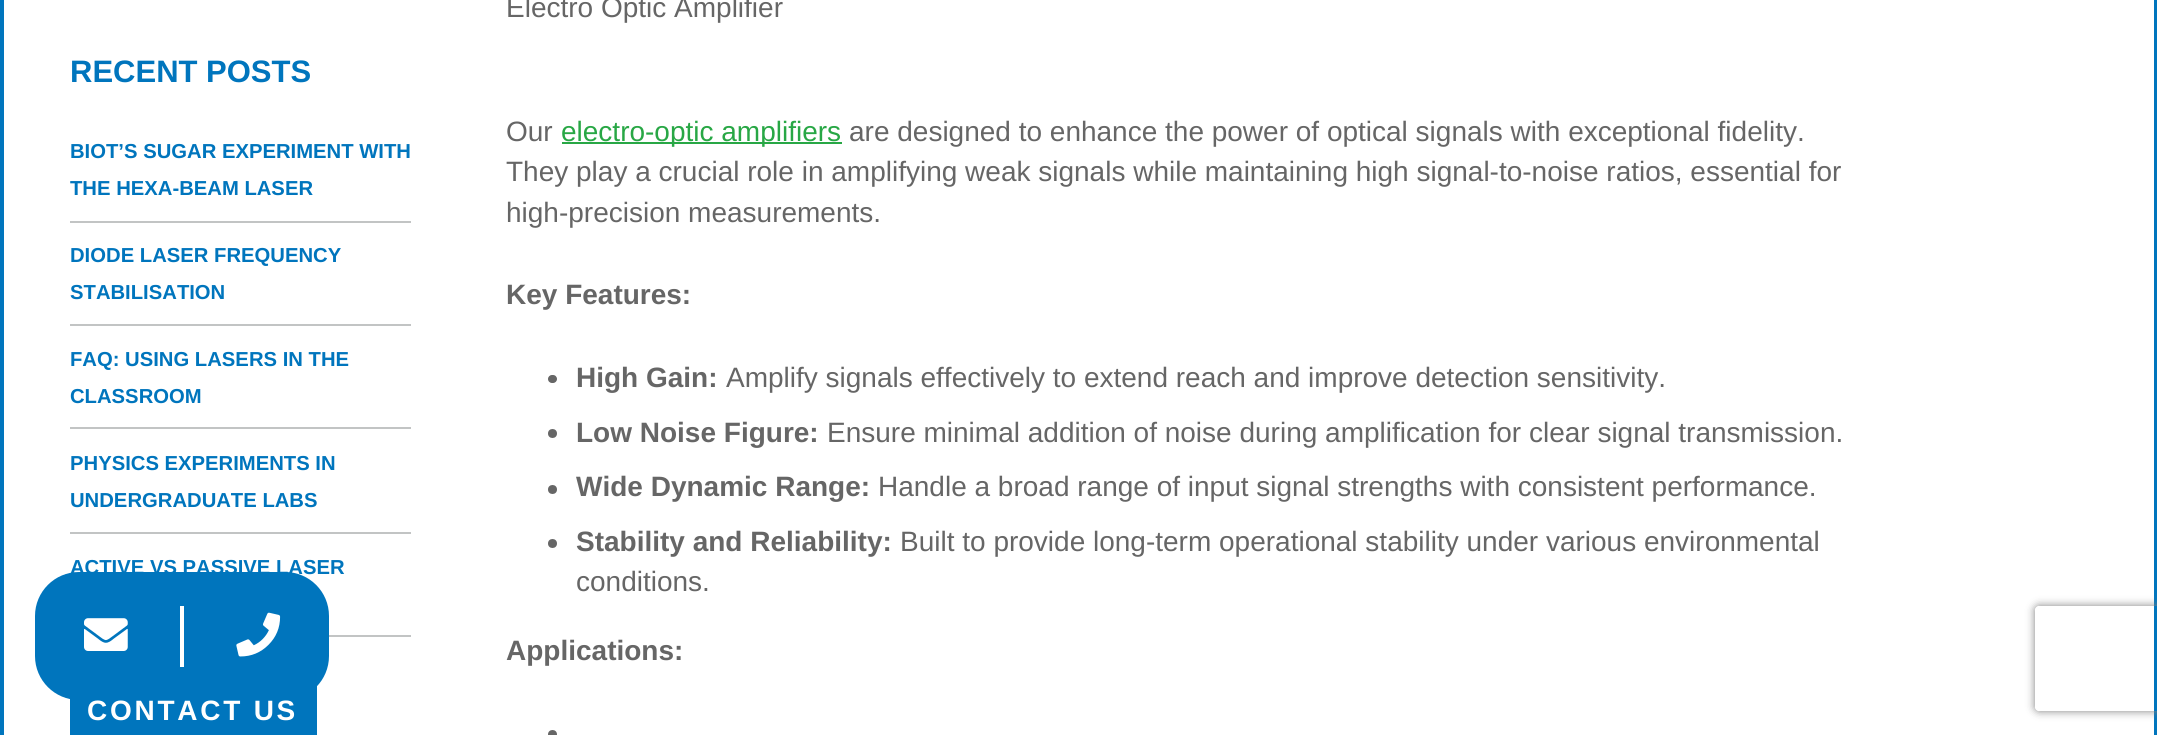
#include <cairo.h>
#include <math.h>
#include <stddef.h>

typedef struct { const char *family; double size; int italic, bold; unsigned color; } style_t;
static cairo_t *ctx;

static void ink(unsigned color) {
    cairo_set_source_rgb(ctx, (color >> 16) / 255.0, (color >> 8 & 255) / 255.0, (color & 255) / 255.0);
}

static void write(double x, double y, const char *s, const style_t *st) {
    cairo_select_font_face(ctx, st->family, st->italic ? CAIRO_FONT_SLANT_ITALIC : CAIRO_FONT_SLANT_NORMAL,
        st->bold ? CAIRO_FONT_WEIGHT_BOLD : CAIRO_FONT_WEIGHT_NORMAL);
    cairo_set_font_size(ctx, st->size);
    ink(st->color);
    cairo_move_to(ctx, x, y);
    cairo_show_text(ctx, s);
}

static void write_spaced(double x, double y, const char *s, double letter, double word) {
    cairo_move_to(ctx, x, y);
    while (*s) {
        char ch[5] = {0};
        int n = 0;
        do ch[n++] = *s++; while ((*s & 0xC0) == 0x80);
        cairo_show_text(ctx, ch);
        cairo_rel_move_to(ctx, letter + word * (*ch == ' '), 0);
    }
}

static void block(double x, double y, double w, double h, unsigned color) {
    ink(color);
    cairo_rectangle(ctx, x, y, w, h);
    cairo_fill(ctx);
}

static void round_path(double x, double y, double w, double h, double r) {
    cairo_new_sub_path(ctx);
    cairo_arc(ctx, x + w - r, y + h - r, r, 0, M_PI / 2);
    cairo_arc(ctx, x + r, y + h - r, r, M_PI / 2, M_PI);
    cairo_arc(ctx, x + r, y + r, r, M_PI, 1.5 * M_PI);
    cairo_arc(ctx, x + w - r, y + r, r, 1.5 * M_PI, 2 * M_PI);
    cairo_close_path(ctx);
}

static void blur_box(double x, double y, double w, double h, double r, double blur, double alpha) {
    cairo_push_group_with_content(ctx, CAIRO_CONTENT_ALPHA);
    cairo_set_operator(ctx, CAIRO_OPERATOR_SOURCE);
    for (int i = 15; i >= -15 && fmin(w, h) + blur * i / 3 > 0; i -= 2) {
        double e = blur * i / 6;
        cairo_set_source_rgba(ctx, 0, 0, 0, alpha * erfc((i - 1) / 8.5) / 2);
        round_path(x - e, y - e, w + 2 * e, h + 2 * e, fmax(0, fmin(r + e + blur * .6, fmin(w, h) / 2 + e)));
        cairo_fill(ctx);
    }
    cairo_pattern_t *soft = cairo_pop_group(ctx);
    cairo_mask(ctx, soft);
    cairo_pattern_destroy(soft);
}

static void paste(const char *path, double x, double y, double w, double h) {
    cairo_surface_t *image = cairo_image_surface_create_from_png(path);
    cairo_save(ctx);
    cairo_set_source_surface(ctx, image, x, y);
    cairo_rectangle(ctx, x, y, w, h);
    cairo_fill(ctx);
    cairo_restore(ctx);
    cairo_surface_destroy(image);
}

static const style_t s1 = {"Liberation Sans", 31, 0, 1, 0x0075bd};
static const style_t s2 = {"Liberation Sans", 20.25, 0, 1, 0x0075bd};
static const style_t s3 = {"Liberation Sans", 28, 0, 0, 0x666666};
static const style_t s4 = {"Liberation Sans", 28, 0, 0, 0x28a745};
static const style_t s5 = {"Liberation Sans", 28, 0, 1, 0x666666};

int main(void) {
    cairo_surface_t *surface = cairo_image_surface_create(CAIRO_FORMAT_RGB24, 2157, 735);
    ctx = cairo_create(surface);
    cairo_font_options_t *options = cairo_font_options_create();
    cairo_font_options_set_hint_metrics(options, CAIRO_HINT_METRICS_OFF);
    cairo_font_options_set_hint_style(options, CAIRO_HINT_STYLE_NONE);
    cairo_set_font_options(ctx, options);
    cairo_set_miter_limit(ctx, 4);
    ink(0xffffff);
    cairo_paint(ctx);
    ink(0x0075bd);
    cairo_new_path(ctx);
    cairo_move_to(ctx, 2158, -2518);
    cairo_line_to(ctx, 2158, 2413);
    cairo_line_to(ctx, 2154, 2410);
    cairo_line_to(ctx, 2154, -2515);
    cairo_close_path(ctx);
    cairo_fill(ctx);
    cairo_new_path(ctx);
    cairo_move_to(ctx, 0, 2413);
    cairo_line_to(ctx, 0, -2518);
    cairo_line_to(ctx, 4, -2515);
    cairo_line_to(ctx, 4, 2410);
    cairo_close_path(ctx);
    cairo_fill(ctx);
    write(70, 82, "RECENT POSTS", &s1);
    block(70, 221, 341, 2, 0xc2c4c4);
    write(70, 158, "BIOT’S SUGAR EXPERIMENT WITH", &s2);
    write(70, 195, "THE HEXA-BEAM LASER", &s2);
    block(70, 324, 341, 2, 0xc2c4c4);
    write(70, 262, "DIODE LASER FREQUENCY", &s2);
    write(70, 299, "STABILISATION", &s2);
    block(70, 427, 341, 2, 0xc2c4c4);
    write(70, 366, "FAQ: USING LASERS IN THE", &s2);
    write(70, 403, "CLASSROOM", &s2);
    block(70, 532, 341, 2, 0xc2c4c4);
    write(70, 470, "PHYSICS EXPERIMENTS IN", &s2);
    write(70, 507, "UNDERGRADUATE LABS", &s2);
    block(329, 635, 82, 2, 0xc2c4c4);
    write(70, 574, "ACTIVE VS PASSIVE LASER", &s2);
    block(70, 686, 247, 49, 0x0075bd);
    cairo_set_font_size(ctx, 28);
    ink(0xffffff);
    write_spaced(87, 720, "CONTACT US", 2.75, 0);
    write(506, 17, "Electro Optic Amplifier", &s3);
    write(506, 141, "Our", &s3);
    block(562, 142, 280, 2, 0x28a745);
    write(561, 141, "electro-optic amplifiers", &s4);
    write(849, 141, "are designed to enhance the power of optical signals with exceptional fidelity.", &s3);
    write(506, 181, "They play a crucial role in amplifying weak signals while maintaining high signal-to-noise ratios, essential for", &s3);
    write(506, 222, "high-precision measurements.", &s3);
    write(506, 304, "Key Features:", &s5);
    round_path(548, 375, 9, 8, 4);
    cairo_fill(ctx);
    write(576, 387, "High Gain:", &s5);
    write(726, 387, "Amplify signals effectively to extend reach and improve detection sensitivity.", &s3);
    cairo_new_path(ctx);
    cairo_arc(ctx, 552.5, 433.5, 4.5, 0, 2 * M_PI);
    cairo_fill(ctx);
    write(576, 442, "Low Noise Figure:", &s5);
    write(827, 442, "Ensure minimal addition of noise during amplification for clear signal transmission.", &s3);
    cairo_new_path(ctx);
    cairo_arc(ctx, 552.5, 489.5, 4.5, 0, 2 * M_PI);
    cairo_fill(ctx);
    write(576, 496, "Wide Dynamic Range:", &s5);
    write(878, 496, "Handle a broad range of input signal strengths with consistent performance.", &s3);
    cairo_new_path(ctx);
    cairo_arc(ctx, 552.5, 543.5, 4.5, 0, 2 * M_PI);
    cairo_fill(ctx);
    write(576, 551, "Stability and Reliability:", &s5);
    write(900, 551, "Built to provide long-term operational stability under various environmental", &s3);
    write(576, 591, "conditions.", &s3);
    write(506, 660, "Applications:", &s5);
    cairo_new_path(ctx);
    cairo_arc(ctx, 552.5, 734.5, 4.5, 0, 2 * M_PI);
    cairo_fill(ctx);
    ink(0x0075bd);
    round_path(35, 572, 294, 128, 44);
    cairo_fill(ctx);
    paste("pic1.png", 84, 618, 44, 33);
    block(180, 606, 4, 61, 0xffffff);
    paste("pic2.png", 236, 612, 45, 45);
    cairo_save(ctx);
    cairo_set_fill_rule(ctx, CAIRO_FILL_RULE_EVEN_ODD);
    cairo_new_path(ctx);
    cairo_move_to(ctx, 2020, 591);
    cairo_line_to(ctx, 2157, 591);
    cairo_line_to(ctx, 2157, 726);
    cairo_line_to(ctx, 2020, 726);
    cairo_close_path(ctx);
    cairo_move_to(ctx, 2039, 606);
    cairo_line_to(ctx, 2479, 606);
    cairo_curve_to(ctx, 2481, 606, 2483, 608, 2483, 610);
    cairo_line_to(ctx, 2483, 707);
    cairo_curve_to(ctx, 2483, 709, 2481, 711, 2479, 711);
    cairo_line_to(ctx, 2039, 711);
    cairo_curve_to(ctx, 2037, 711, 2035, 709, 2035, 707);
    cairo_line_to(ctx, 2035, 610);
    cairo_curve_to(ctx, 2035, 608, 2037, 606, 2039, 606);
    cairo_close_path(ctx);
    cairo_clip(ctx);
    ink(0x808080);
    blur_box(2035, 606, 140, 105, 4, 4.5, 1);
    cairo_restore(ctx);
    cairo_surface_write_to_png(surface, "screenshot.png");
    cairo_font_options_destroy(options);
    cairo_destroy(ctx);
    cairo_surface_destroy(surface);
    return 0;
}
